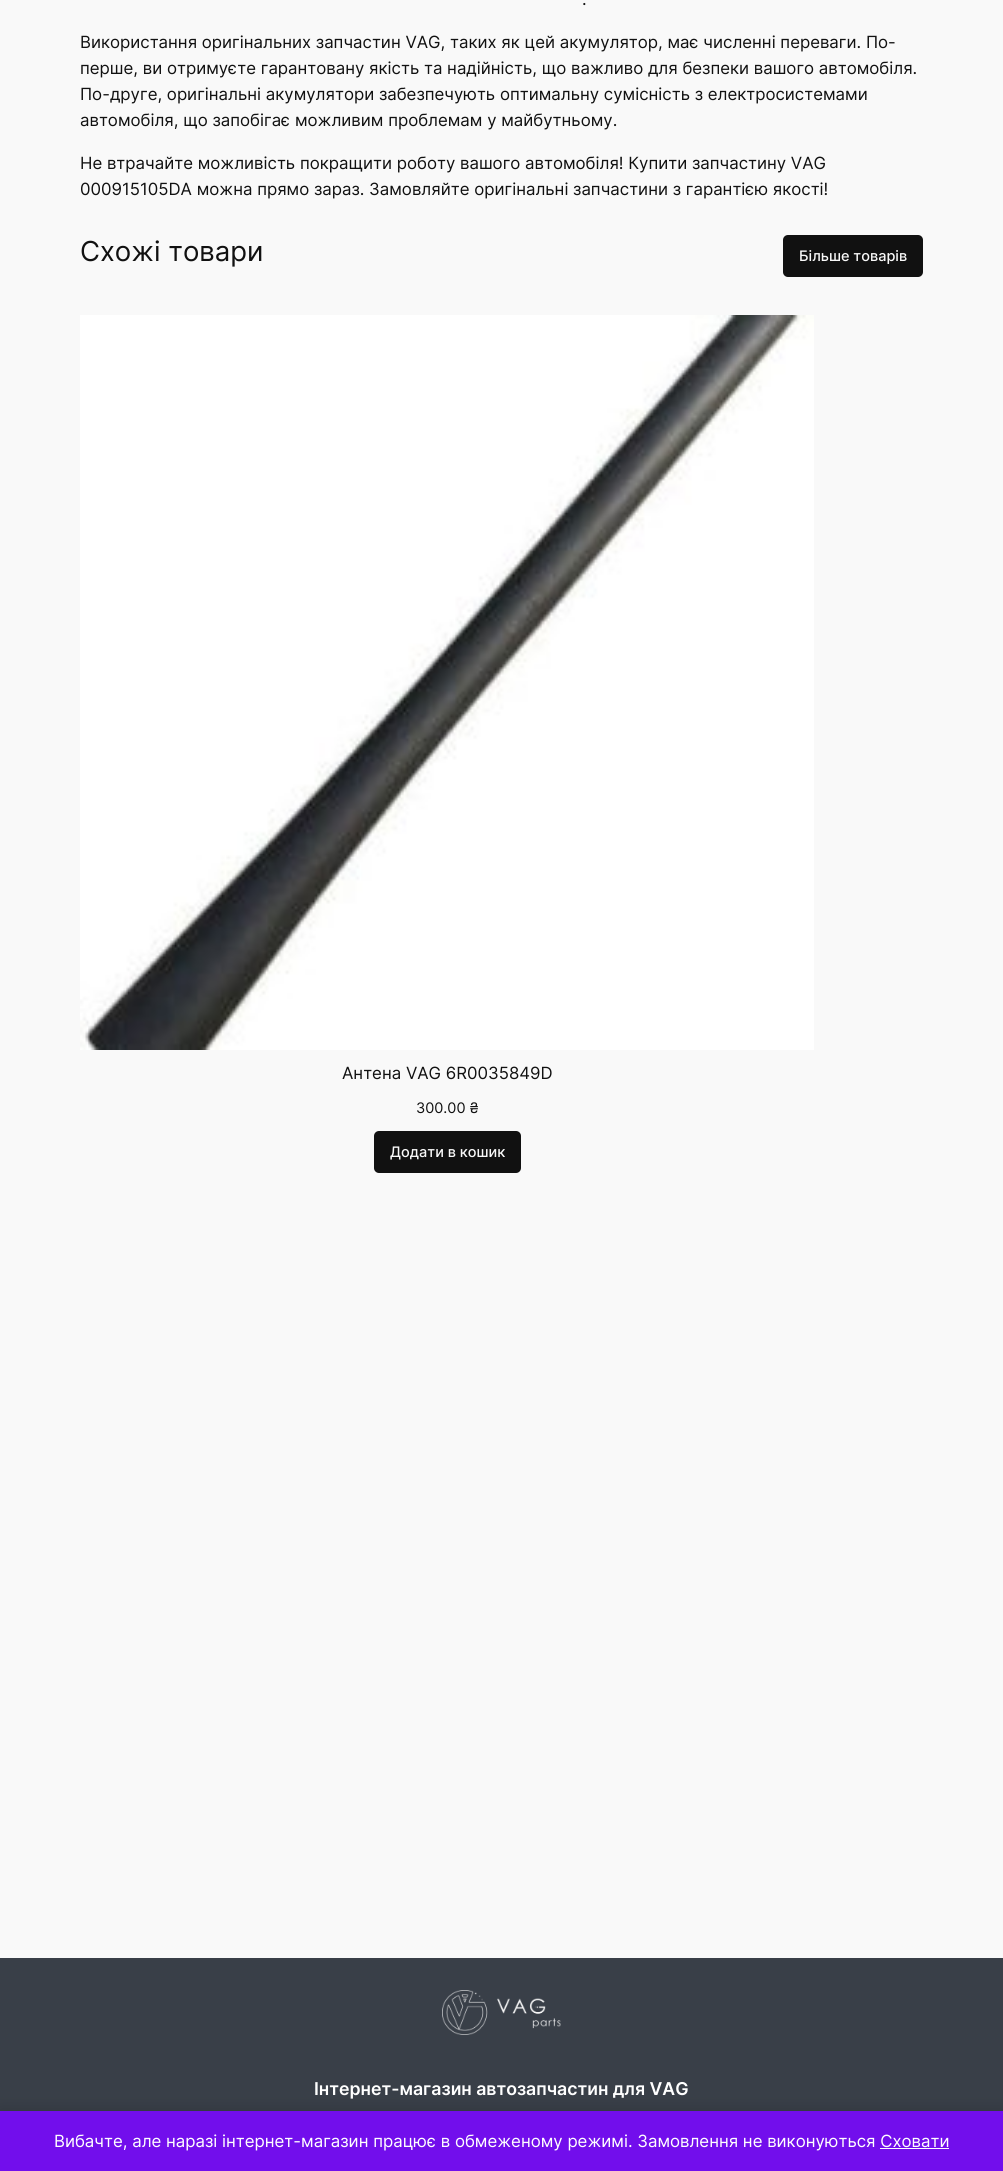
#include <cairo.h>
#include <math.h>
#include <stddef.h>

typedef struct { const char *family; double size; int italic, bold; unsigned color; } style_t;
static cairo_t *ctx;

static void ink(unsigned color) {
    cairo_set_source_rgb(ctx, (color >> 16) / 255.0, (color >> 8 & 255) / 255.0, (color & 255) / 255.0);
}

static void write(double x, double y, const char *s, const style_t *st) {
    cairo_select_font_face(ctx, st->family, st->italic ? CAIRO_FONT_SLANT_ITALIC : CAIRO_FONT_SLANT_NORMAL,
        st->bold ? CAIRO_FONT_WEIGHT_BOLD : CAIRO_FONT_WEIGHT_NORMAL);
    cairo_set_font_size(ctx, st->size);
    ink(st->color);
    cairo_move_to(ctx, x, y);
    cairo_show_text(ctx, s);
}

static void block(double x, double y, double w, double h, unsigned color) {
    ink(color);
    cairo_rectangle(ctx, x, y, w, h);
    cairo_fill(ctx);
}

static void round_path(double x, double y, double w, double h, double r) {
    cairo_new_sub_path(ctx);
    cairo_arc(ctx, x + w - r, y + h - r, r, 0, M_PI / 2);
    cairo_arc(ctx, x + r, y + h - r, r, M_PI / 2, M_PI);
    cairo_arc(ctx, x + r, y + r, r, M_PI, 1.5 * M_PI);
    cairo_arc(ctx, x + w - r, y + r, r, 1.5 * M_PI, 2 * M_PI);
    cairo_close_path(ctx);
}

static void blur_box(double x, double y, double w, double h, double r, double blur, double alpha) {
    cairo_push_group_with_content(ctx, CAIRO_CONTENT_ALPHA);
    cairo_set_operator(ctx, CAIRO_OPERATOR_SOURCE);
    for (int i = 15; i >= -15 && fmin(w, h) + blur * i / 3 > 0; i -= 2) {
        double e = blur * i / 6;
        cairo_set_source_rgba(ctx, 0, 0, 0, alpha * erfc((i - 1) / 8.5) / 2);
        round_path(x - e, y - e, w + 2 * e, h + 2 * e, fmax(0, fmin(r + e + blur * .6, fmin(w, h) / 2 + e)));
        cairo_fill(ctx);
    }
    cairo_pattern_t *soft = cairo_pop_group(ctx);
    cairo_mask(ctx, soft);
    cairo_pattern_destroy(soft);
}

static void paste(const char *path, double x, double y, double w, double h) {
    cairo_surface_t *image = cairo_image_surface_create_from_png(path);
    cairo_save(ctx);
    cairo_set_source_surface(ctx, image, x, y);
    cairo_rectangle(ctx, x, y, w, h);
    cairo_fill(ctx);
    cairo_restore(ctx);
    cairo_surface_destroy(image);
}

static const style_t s1 = {"Inter", 16.8, 0, 0, 0x111111};
static const style_t s2 = {"Inter", 27.5, 0, 0, 0x111111};
static const style_t s3 = {"Inter Medium", 14.5, 0, 0, 0xf9f9f9};
static const style_t s4 = {"Inter", 14.5, 0, 0, 0x111111};
static const style_t s5 = {"Inter SemiBold", 17.7, 0, 0, 0xffffff};
static const style_t s6 = {"Inter", 16.8, 0, 0, 0xffffff};

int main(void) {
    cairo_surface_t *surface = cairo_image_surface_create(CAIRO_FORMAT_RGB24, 1003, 2171);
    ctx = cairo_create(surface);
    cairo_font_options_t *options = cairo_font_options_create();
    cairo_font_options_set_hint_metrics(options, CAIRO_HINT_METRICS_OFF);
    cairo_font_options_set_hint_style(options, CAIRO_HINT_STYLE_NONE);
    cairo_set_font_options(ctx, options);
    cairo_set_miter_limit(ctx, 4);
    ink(0xf9f9f9);
    cairo_paint(ctx);
    write(582, 5, ".", &s1);
    write(80, 48, "Використання оригінальних запчастин VAG, таких як цей акумулятор, має численні переваги. По-", &s1);
    write(80, 74, "перше, ви отримуєте гарантовану якість та надійність, що важливо для безпеки вашого автомобіля.", &s1);
    write(80, 100, "По-друге, оригінальні акумулятори забезпечують оптимальну сумісність з електросистемами", &s1);
    write(80, 126, "автомобіля, що запобігає можливим проблемам у майбутньому.", &s1);
    write(80, 169, "Не втрачайте можливість покращити роботу вашого автомобіля! Купити запчастину VAG", &s1);
    write(80, 195, "000915105DA можна прямо зараз. Замовляйте оригінальні запчастини з гарантією якості!", &s1);
    write(80, 261, "Схожі товари", &s2);
    round_path(783, 235, 140, 42, 5);
    cairo_fill(ctx);
    write(799, 261, "Більше товарів", &s3);
    paste("pic1.png", 80, 315, 734, 735);
    write(342, 1079, "Антена VAG 6R0035849D", &s1);
    write(416, 1113, "300.00 ₴", &s4);
    round_path(374, 1131, 147, 42, 5);
    cairo_fill(ctx);
    write(390, 1157, "Додати в кошик", &s3);
    block(0, 1958, 1003, 153, 0x393f48);
    paste("pic2.png", 442, 1990, 119, 45);
    write(314, 2095, "Інтернет-магазин автозапчастин для VAG", &s5);
    ink(0x000000);
    blur_box(0, 2112, 1003, 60, 0, 8.5, 0.2);
    block(0, 2111, 1003, 60, 0x720eec);
    write(54, 2147, "Вибачте, але наразі інтернет-магазин працює в обмеженому режимі. Замовлення не виконуються Сховати", &s6);
    block(880, 2148, 69, 1, 0xfcfbfe);
    cairo_surface_write_to_png(surface, "screenshot.png");
    cairo_font_options_destroy(options);
    cairo_destroy(ctx);
    cairo_surface_destroy(surface);
    return 0;
}
